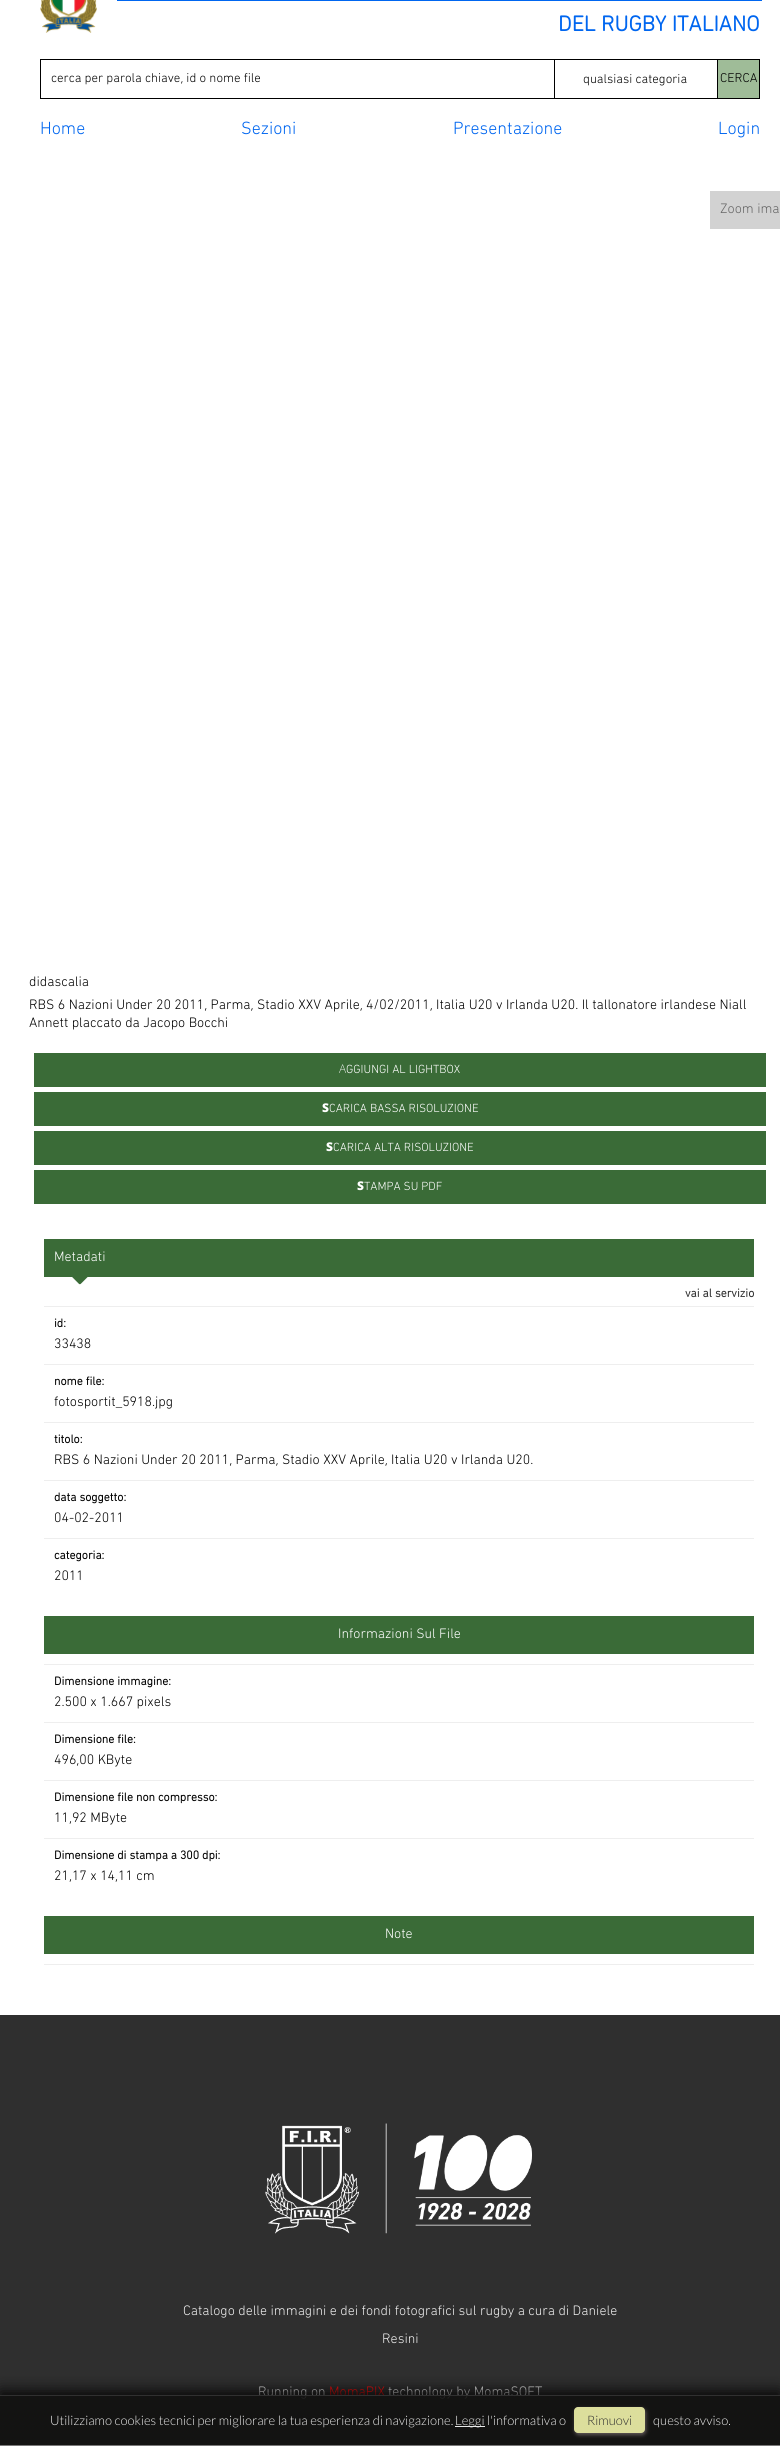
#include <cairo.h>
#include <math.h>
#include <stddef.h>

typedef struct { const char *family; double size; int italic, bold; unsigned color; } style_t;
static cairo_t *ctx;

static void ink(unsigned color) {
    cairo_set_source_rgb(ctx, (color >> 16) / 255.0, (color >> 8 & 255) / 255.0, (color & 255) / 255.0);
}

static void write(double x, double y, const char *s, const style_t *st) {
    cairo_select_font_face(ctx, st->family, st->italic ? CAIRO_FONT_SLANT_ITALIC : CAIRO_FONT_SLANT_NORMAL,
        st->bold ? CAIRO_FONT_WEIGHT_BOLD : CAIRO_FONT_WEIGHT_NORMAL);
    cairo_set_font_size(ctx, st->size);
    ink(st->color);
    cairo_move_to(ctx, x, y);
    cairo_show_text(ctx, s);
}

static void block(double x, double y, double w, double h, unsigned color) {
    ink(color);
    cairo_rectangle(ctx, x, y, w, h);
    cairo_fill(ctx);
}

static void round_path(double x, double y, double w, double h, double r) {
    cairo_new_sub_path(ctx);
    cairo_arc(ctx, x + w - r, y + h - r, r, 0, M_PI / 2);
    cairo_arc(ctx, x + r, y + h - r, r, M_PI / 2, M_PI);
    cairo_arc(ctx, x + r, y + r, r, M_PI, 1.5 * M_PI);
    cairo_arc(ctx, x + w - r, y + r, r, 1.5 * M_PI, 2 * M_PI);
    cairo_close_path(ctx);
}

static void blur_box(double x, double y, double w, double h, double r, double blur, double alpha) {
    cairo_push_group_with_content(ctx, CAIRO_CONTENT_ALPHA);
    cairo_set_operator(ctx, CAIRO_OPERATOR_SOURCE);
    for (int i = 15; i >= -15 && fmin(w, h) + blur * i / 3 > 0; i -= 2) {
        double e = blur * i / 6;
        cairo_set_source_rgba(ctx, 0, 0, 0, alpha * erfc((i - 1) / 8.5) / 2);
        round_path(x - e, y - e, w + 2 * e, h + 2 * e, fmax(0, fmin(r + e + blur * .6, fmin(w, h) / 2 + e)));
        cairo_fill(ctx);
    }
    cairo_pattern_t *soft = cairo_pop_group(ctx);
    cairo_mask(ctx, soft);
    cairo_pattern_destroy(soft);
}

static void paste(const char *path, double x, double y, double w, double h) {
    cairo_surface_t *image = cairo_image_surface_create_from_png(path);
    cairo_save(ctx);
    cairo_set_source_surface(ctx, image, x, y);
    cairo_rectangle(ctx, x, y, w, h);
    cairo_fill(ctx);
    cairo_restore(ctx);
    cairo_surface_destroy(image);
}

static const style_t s1 = {"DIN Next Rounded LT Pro", 22, 0, 1, 0x0066f0};
static const style_t s2 = {"DIN Next Rounded LT Pro Light", 13, 0, 0, 0x000000};
static const style_t s3 = {"DIN Next Rounded LT Pro Light", 18, 0, 0, 0x0066f0};
static const style_t s4 = {"DIN Next Rounded LT Pro Light", 14, 0, 0, 0x666666};
static const style_t s5 = {"DIN Next Rounded LT Pro Light", 14, 0, 0, 0x000000};
static const style_t s6 = {"Noto Sans ExtraLight", 12, 0, 0, 0xffffff};
static const style_t s7 = {"DIN Next Rounded LT Pro Light", 12, 0, 0, 0xffffff};
static const style_t s8 = {"Noto Sans Black", 12, 0, 0, 0xffffff};
static const style_t s9 = {"DIN Next Rounded LT Pro Light", 14, 0, 0, 0xffffff};
static const style_t s10 = {"DIN Next Rounded LT Pro", 12, 0, 1, 0x2f2f2f};
static const style_t s11 = {"DIN Next Rounded LT Pro", 12, 0, 1, 0x000000};
static const style_t s12 = {"DIN Next Rounded LT Pro Light", 14, 0, 0, 0xeeeeee};
static const style_t s13 = {"DIN Next Rounded LT Pro Light", 14, 0, 0, 0xff0c0a};
static const style_t s14 = {"Lato Light", 13, 0, 0, 0xeeeeee};
static const style_t s15 = {"Lato Light", 13, 0, 0, 0x2f2f2f};

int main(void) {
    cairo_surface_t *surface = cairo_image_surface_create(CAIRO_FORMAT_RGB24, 780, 2446);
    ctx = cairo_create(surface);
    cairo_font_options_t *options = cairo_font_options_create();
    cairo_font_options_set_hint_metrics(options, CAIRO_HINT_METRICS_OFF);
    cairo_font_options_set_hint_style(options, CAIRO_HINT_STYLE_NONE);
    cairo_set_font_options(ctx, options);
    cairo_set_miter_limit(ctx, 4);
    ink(0xffffff);
    cairo_paint(ctx);
    paste("pic1.png", 40, 0, 57, 33);
    block(117, 0, 645, 1, 0x0066f0);
    write(558, 31, "DEL RUGBY ITALIANO", &s1);
    cairo_rectangle(ctx, 40.5, 59.5, 719, 39);
    ink(0x000000);
    cairo_set_line_width(ctx, 1);
    cairo_stroke(ctx);
    write(51, 82, "cerca per parola chiave, id o nome file", &s2);
    block(717, 60, 1, 38, 0x000000);
    block(554, 60, 1, 38, 0x000000);
    write(583, 83, "qualsiasi categoria", &s2);
    block(718, 60, 41, 38, 0x9fbc98);
    write(720, 82, "CERCA", &s2);
    write(40, 134, "Home", &s3);
    write(241, 134, "Sezioni", &s3);
    write(453, 134, "Presentazione", &s3);
    write(718, 134, "Login", &s3);
    block(710, 191, 70, 38, 0xd2d2d2);
    write(720, 213, "Zoom ima", &s4);
    write(29, 986, "didascalia", &s5);
    write(29, 1009, "RBS 6 Nazioni Under 20 2011, Parma, Stadio XXV Aprile, 4/02/2011, Italia U20 v Irlanda U20. Il tallonatore irlandese Niall", &s5);
    write(29, 1027, "Annett placcato da Jacopo Bocchi", &s5);
    block(34, 1053, 732, 34, 0x3a6b37);
    write(339, 1073, "A", &s6);
    write(346, 1073, "GGIUNGI AL LIGHTBOX", &s7);
    block(34, 1092, 732, 34, 0x3a6b37);
    write(322, 1112, "S", &s8);
    write(329, 1112, "CARICA BASSA RISOLUZIONE", &s7);
    block(34, 1131, 732, 34, 0x3a6b37);
    write(326, 1151, "S", &s8);
    write(333, 1151, "CARICA ALTA RISOLUZIONE", &s7);
    block(34, 1170, 732, 34, 0x3a6b37);
    write(357, 1190, "S", &s8);
    write(364, 1190, "TAMPA SU PDF", &s7);
    block(44, 1239, 710, 38, 0x3a6b37);
    write(54, 1261, "Metadati", &s9);
    paste("pic2.png", 72, 1277, 16, 8);
    write(685, 1297, "vai al servizio", &s10);
    block(44, 1306, 710, 1, 0xeeeeee);
    write(54, 1327, "id:", &s11);
    write(54, 1348, "33438", &s5);
    block(44, 1364, 710, 1, 0xeeeeee);
    write(54, 1385, "nome file:", &s11);
    write(54, 1406, "fotosportit_5918.jpg", &s5);
    block(44, 1422, 710, 1, 0xeeeeee);
    write(54, 1443, "titolo:", &s11);
    write(54, 1464, "RBS 6 Nazioni Under 20 2011, Parma, Stadio XXV Aprile, Italia U20 v Irlanda U20.", &s5);
    block(44, 1480, 710, 1, 0xeeeeee);
    write(54, 1501, "data soggetto:", &s11);
    write(54, 1522, "04-02-2011", &s5);
    block(44, 1538, 710, 1, 0xeeeeee);
    write(54, 1559, "categoria:", &s11);
    write(54, 1580, "2011", &s5);
    block(44, 1616, 710, 38, 0x3a6b37);
    write(338, 1638, "Informazioni Sul File", &s9);
    block(44, 1664, 710, 1, 0xeeeeee);
    write(54, 1685, "Dimensione immagine:", &s11);
    write(54, 1706, "2.500 x 1.667 pixels", &s5);
    block(44, 1722, 710, 1, 0xeeeeee);
    write(54, 1743, "Dimensione file:", &s11);
    write(54, 1764, "496,00 KByte", &s5);
    block(44, 1780, 710, 1, 0xeeeeee);
    write(54, 1801, "Dimensione file non compresso:", &s11);
    write(54, 1822, "11,92 MByte", &s5);
    block(44, 1838, 710, 1, 0xeeeeee);
    write(54, 1859, "Dimensione di stampa a 300 dpi:", &s11);
    write(54, 1880, "21,17 x 14,11 cm", &s5);
    block(44, 1916, 710, 38, 0x3a6b37);
    write(385, 1938, "Note", &s9);
    block(44, 1964, 710, 1, 0xeeeeee);
    block(0, 2015, 780, 430, 0x2f2f2f);
    paste("pic3.png", 265, 2123, 267, 111);
    write(183, 2315, "Catalogo delle immagini e dei fondi fotografici sul rugby a cura di Daniele", &s12);
    write(382, 2343, "Resini", &s12);
    write(258, 2396, "Running on", &s12);
    write(329, 2396, "MomaPIX", &s13);
    write(388, 2396, "technology by MomaSOFT", &s12);
    cairo_save(ctx);
    cairo_rectangle(ctx, 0, 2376, 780, 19);
    cairo_clip(ctx);
    ink(0x000000);
    blur_box(0, 2391, 780, 51, 0, 7.5, 0.9);
    cairo_restore(ctx);
    cairo_set_source_rgba(ctx, 0.063, 0.063, 0.059, 0.9);
    cairo_rectangle(ctx, 0, 2395, 780, 50);
    cairo_fill(ctx);
    cairo_set_source_rgba(ctx, 0.2, 0.2, 0.2, 0.9);
    cairo_rectangle(ctx, 0, 2395, 780, 1);
    cairo_fill(ctx);
    block(0, 2445, 780, 1, 0x787878);
    write(50, 2425, "Utilizziamo cookies tecnici per migliorare la tua esperienza di navigazione.", &s14);
    block(455, 2426, 30, 1, 0xeaeaea);
    write(455, 2425, "Leggi l'informativa o", &s14);
    ink(0x615858);
    blur_box(575, 2409, 71, 26, 4, 2, 1);
    ink(0xdcde9c);
    round_path(574, 2407, 71, 26, 4);
    cairo_fill(ctx);
    write(587, 2425, "Rimuovi", &s15);
    write(653, 2425, "questo avviso.", &s14);
    cairo_surface_write_to_png(surface, "screenshot.png");
    cairo_font_options_destroy(options);
    cairo_destroy(ctx);
    cairo_surface_destroy(surface);
    return 0;
}
